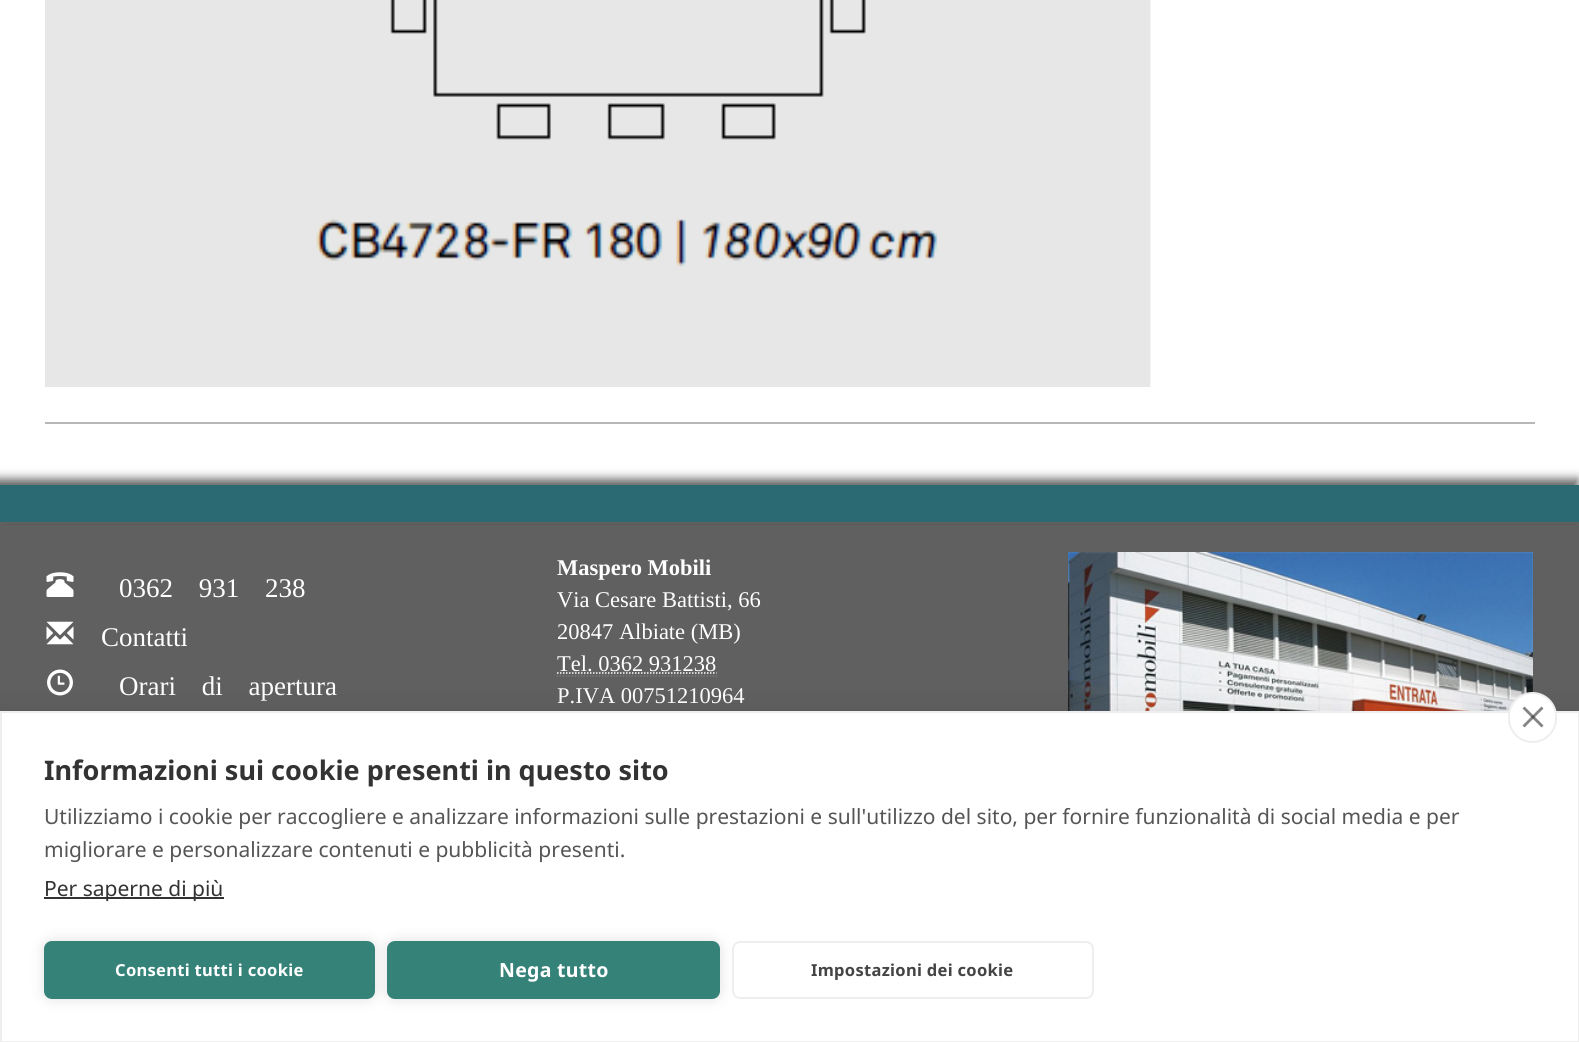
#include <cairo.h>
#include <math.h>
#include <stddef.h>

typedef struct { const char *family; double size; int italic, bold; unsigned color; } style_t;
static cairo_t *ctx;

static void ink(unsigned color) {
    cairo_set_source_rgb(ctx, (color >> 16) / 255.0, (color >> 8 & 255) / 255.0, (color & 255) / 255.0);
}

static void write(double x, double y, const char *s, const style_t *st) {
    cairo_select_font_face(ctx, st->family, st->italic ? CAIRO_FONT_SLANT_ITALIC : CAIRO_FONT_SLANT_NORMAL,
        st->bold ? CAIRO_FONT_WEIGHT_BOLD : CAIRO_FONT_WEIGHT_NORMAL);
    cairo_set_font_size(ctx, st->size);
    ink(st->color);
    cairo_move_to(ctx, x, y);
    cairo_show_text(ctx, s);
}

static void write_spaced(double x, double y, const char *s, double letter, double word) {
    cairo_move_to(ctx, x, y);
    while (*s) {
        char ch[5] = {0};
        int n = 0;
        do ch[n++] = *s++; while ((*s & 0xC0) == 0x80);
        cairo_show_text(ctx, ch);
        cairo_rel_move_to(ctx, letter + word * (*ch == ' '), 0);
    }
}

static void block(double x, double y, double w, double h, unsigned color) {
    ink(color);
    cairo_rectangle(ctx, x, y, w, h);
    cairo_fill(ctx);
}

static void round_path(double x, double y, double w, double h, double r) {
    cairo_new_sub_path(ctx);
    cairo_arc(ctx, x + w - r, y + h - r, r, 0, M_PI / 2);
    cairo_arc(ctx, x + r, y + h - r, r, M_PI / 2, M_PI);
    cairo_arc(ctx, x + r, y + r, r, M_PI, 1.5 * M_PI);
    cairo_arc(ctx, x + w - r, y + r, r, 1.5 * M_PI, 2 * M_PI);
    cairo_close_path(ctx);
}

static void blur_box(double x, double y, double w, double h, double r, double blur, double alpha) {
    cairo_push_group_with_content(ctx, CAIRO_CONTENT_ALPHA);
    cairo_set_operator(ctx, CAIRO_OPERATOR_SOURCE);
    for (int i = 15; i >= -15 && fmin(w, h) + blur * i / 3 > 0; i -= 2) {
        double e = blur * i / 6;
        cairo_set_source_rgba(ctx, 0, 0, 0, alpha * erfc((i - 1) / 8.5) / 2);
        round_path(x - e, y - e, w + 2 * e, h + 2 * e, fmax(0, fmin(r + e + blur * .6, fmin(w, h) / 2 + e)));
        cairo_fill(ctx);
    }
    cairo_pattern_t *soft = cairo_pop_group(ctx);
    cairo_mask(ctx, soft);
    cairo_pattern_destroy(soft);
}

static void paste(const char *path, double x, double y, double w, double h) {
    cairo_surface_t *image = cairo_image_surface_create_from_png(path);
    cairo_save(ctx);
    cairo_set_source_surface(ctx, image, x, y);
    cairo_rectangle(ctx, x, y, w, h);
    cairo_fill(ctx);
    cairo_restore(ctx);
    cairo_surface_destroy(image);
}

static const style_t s1 = {"Liberation Serif", 27, 0, 0, 0xffffff};
static const style_t s2 = {"Liberation Serif", 22.5, 0, 1, 0xffffff};
static const style_t s3 = {"Liberation Serif", 22.5, 0, 0, 0xffffff};
static const style_t s4 = {"Noto Sans", 27, 0, 1, 0x333333};
static const style_t s5 = {"Noto Sans", 21, 0, 0, 0x555555};
static const style_t s6 = {"Noto Sans", 21, 0, 0, 0x333333};

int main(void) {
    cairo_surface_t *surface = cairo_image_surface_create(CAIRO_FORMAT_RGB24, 1579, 1042);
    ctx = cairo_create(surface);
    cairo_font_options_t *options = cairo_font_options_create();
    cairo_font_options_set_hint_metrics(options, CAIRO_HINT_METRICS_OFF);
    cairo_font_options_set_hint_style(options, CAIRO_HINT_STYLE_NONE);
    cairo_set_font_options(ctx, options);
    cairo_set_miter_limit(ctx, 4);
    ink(0xffffff);
    cairo_paint(ctx);
    paste("pic1.png", 45, 0, 1106, 387);
    block(45, 422, 1490, 2, 0xb7b7b7);
    ink(0x606060);
    blur_box(-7, 479, 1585, 520, 0, 5, 1);
    block(0, 522, 1579, 189, 0x606060);
    block(0, 485, 1579, 37, 0x2b6973);
    ink(0x5b5b5b);
    cairo_new_path(ctx);
    cairo_move_to(ctx, 6, 525);
    cairo_line_to(ctx, 1574, 525);
    cairo_curve_to(ctx, 1576, 525, 1578, 527, 1578, 530);
    cairo_line_to(ctx, 1578, 529);
    cairo_curve_to(ctx, 1578, 526, 1576, 524, 1573, 524);
    cairo_line_to(ctx, 7, 524);
    cairo_curve_to(ctx, 4, 524, 2, 526, 2, 529);
    cairo_line_to(ctx, 2, 530);
    cairo_curve_to(ctx, 2, 527, 4, 525, 6, 525);
    cairo_close_path(ctx);
    cairo_fill(ctx);
    paste("pic2.png", 46, 572, 28, 25);
    cairo_select_font_face(ctx, "Liberation Serif", CAIRO_FONT_SLANT_NORMAL, CAIRO_FONT_WEIGHT_NORMAL);
    cairo_set_font_size(ctx, 27);
    ink(0xffffff);
    write_spaced(119, 597, "0362 931 238", 0, 19);
    paste("pic3.png", 46, 621, 28, 24);
    write(101, 646, "Contatti", &s1);
    paste("pic4.png", 47, 669, 26, 27);
    write_spaced(119, 695, "Orari di apertura", 0, 19);
    write(557, 575, "Maspero Mobili", &s2);
    write(557, 607, "Via Cesare Battisti, 66", &s3);
    write(557, 639, "20847 Albiate (MB)", &s3);
    write(557, 671, "Tel. 0362 931238", &s3);
    cairo_new_path(ctx);
    cairo_move_to(ctx, 556.5, 676);
    cairo_line_to(ctx, 717, 676);
    ink(0x777777);
    cairo_set_line_width(ctx, 1.5);
    cairo_set_dash(ctx, (double[]){1.5, 1.5}, 2, 0);
    cairo_stroke(ctx);
    cairo_new_path(ctx);
    cairo_move_to(ctx, 557, 673);
    cairo_line_to(ctx, 716.5, 673);
    ink(0xffffff);
    cairo_stroke(ctx);
    write(557, 703, "P.IVA 00751210964", &s3);
    paste("pic5.png", 1068, 552, 465, 159);
    ink(0x000000);
    blur_box(0, 711, 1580, 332, 0, 15, 0.1);
    ink(0xffffff);
    cairo_rectangle(ctx, 1, 712, 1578, 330);
    cairo_fill_preserve(ctx);
    ink(0xeeeeee);
    cairo_set_line_width(ctx, 2);
    cairo_set_dash(ctx, NULL, 0, 0);
    cairo_stroke(ctx);
    ink(0xffffff);
    round_path(1509, 693, 47, 49, 23.5);
    cairo_fill_preserve(ctx);
    ink(0xeeeeee);
    cairo_stroke(ctx);
    ink(0x858585);
    cairo_new_path(ctx);
    cairo_move_to(ctx, 1522.5, 725.5);
    cairo_line_to(ctx, 1541.5, 706.5);
    cairo_line_to(ctx, 1543.5, 708.5);
    cairo_line_to(ctx, 1524.5, 727.5);
    cairo_close_path(ctx);
    cairo_fill(ctx);
    cairo_set_source_rgba(ctx, 0.2, 0.2, 0.2, 0.6);
    cairo_new_path(ctx);
    cairo_move_to(ctx, 1524.5, 706.5);
    cairo_line_to(ctx, 1543.5, 725.5);
    cairo_line_to(ctx, 1541.5, 727.5);
    cairo_line_to(ctx, 1522.5, 708.5);
    cairo_close_path(ctx);
    cairo_fill(ctx);
    write(44, 780, "Informazioni sui cookie presenti in questo sito", &s4);
    write(44, 824, "Utilizziamo i cookie per raccogliere e analizzare informazioni sulle prestazioni e sull'utilizzo del sito, per fornire funzionalità di social media e per", &s5);
    write(44, 857, "migliorare e personalizzare contenuti e pubblicità presenti.", &s5);
    block(44, 897, 180, 2, 0x333333);
    write(44, 896, "Per saperne di più", &s6);
    ink(0x000000);
    blur_box(44, 941, 331, 58, 8, 7.5, 0.12);
    ink(0x358279);
    round_path(44, 941, 331, 58, 8);
    cairo_fill(ctx);
    cairo_select_font_face(ctx, "Noto Sans", CAIRO_FONT_SLANT_NORMAL, CAIRO_FONT_WEIGHT_BOLD);
    cairo_set_font_size(ctx, 16.5);
    ink(0xffffff);
    write_spaced(115, 976, "Consenti tutti i cookie", 0.3, 0);
    ink(0x000000);
    blur_box(387, 941, 333, 58, 8, 7.5, 0.12);
    ink(0x358279);
    round_path(387, 941, 333, 58, 8);
    cairo_fill(ctx);
    cairo_set_font_size(ctx, 19.5);
    ink(0xffffff);
    write_spaced(499, 977, "Nega tutto", 0.3, 0);
    round_path(733, 942, 360, 56, 7);
    ink(0xeeeeee);
    cairo_stroke(ctx);
    cairo_set_font_size(ctx, 16.5);
    ink(0x444444);
    write_spaced(811, 976, "Impostazioni dei cookie", 0.3, 0);
    cairo_surface_write_to_png(surface, "screenshot.png");
    cairo_font_options_destroy(options);
    cairo_destroy(ctx);
    cairo_surface_destroy(surface);
    return 0;
}
